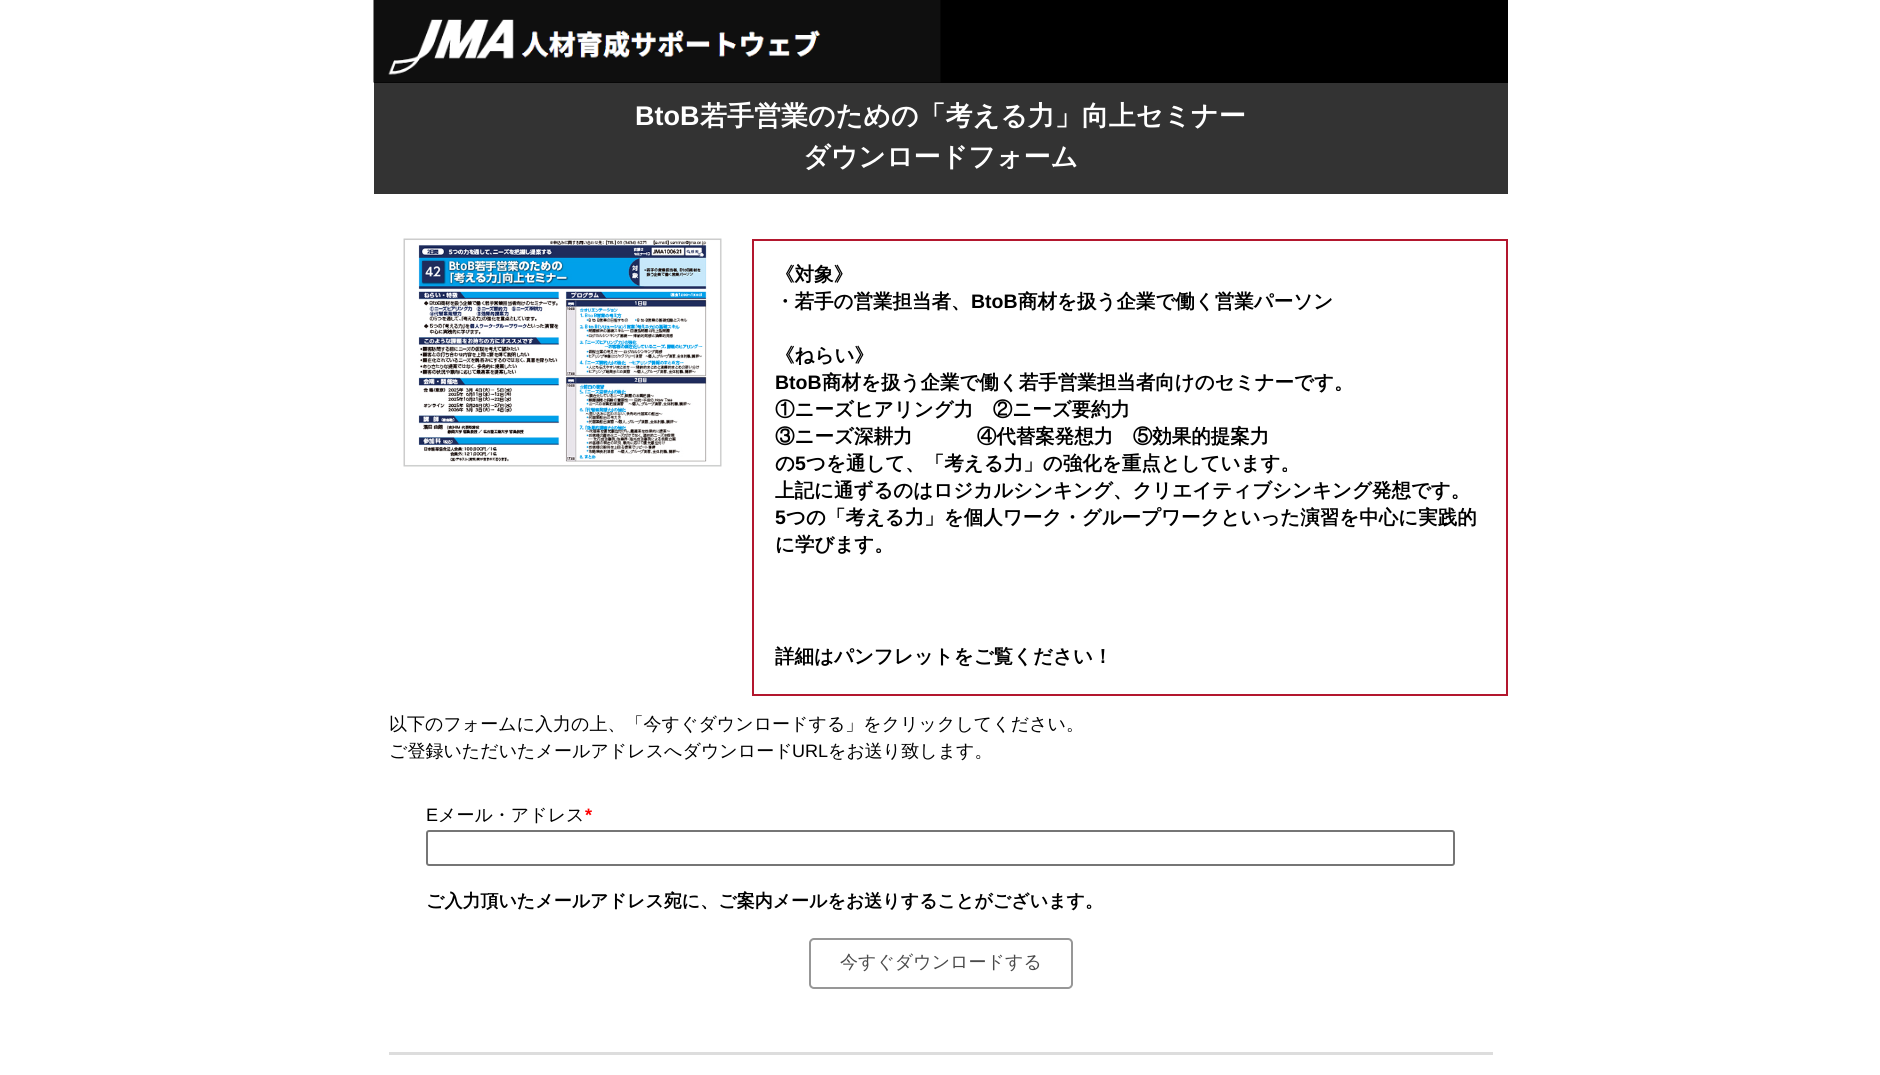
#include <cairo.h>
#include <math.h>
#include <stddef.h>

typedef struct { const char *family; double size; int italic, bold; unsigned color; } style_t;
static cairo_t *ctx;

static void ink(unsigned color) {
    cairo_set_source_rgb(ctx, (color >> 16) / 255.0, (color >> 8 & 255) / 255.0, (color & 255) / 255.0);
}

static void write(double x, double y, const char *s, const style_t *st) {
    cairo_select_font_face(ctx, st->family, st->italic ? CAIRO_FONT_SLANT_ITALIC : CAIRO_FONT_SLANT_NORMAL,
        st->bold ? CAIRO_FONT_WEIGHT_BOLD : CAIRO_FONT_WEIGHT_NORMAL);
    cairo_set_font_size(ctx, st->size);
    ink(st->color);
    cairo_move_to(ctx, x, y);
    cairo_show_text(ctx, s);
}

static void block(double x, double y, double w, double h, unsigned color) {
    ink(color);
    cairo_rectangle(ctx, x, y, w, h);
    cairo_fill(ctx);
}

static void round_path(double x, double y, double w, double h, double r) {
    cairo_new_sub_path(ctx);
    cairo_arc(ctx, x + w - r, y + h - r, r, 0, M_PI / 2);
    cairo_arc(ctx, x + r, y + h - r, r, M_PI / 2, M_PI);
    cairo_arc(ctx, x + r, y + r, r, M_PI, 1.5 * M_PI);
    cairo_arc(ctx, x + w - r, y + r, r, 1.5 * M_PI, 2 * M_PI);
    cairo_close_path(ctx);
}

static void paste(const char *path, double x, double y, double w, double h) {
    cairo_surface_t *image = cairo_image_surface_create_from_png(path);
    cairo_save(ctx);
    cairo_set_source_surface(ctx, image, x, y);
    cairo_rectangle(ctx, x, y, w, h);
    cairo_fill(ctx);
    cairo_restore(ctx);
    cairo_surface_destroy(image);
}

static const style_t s1 = {"Liberation Sans", 27, 0, 1, 0xffffff};
static const style_t s2 = {"WenQuanYi Zen Hei", 27, 0, 1, 0xffffff};
static const style_t s3 = {"WenQuanYi Zen Hei", 19.5, 0, 1, 0x000000};
static const style_t s4 = {"Liberation Sans", 19.5, 0, 1, 0x000000};
static const style_t s5 = {"WenQuanYi Zen Hei Medium", 18, 0, 0, 0x000000};
static const style_t s6 = {"Liberation Sans", 18, 0, 0, 0x000000};
static const style_t s7 = {"Liberation Sans", 18, 0, 1, 0xff0000};
static const style_t s8 = {"WenQuanYi Zen Hei", 18, 0, 1, 0x000000};
static const style_t s9 = {"WenQuanYi Zen Hei Medium", 18, 0, 0, 0x4a4a4a};

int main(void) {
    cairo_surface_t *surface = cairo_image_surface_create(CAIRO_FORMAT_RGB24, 1880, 1075);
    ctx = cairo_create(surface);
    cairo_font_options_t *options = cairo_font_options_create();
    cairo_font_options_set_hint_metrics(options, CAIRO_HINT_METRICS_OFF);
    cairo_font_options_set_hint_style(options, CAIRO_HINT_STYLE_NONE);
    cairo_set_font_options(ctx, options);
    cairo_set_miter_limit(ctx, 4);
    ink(0xffffff);
    cairo_paint(ctx);
    block(374, 0, 1134, 83, 0x000000);
    paste("pic1.png", 373, 0, 568, 83);
    block(374, 83, 1134, 111, 0x333333);
    write(635, 125, "BtoB", &s1);
    write(700, 125, "若手営業のための「考える力」向上セミナー", &s2);
    write(803, 166, "ダウンロードフォーム", &s2);
    paste("pic2.png", 403, 238, 319, 229);
    cairo_rectangle(ctx, 753, 240, 754, 455);
    ink(0xb3172e);
    cairo_stroke(ctx);
    write(775, 281, "《対象》", &s3);
    write(775, 308, "・若手の営業担当者、", &s3);
    write(971, 308, "BtoB", &s4);
    write(1018, 308, "商材を扱う企業で働く営業パーソン", &s3);
    write(775, 362, "《ねらい》", &s3);
    write(775, 389, "BtoB", &s4);
    write(822, 389, "商材を扱う企業で働く若手営業担当者向けのセミナーです。", &s3);
    write(775, 416, "①ニーズヒアリング力　②ニーズ要約力", &s3);
    write(775, 443, "③ニーズ深耕力　　　 ④代替案発想力　⑤効果的提案力", &s3);
    write(775, 470, "の", &s3);
    write(795, 470, "5", &s4);
    write(806, 470, "つを通して、「考える力」の強化を重点としています。", &s3);
    write(775, 497, "上記に通ずるのはロジカルシンキング、クリエイティブシンキング発想です。", &s3);
    write(775, 524, "5", &s4);
    write(786, 524, "つの「考える力」を個人ワーク・グループワークといった演習を中心に実践的", &s3);
    write(775, 551, "に学びます。", &s3);
    write(775, 663, "詳細はパンフレットをご覧ください！", &s3);
    write(389, 730, "以下のフォームに入力の上、「今すぐダウンロードする」をクリックしてください。", &s5);
    write(389, 757, "ご登録いただいたメールアドレスへダウンロード", &s5);
    write(792, 757, "URL", &s6);
    write(828, 757, "をお送り致します。", &s5);
    write(426, 821, "E", &s6);
    write(438, 821, "メール・アドレス", &s5);
    write(585, 821, "*", &s7);
    round_path(427, 831, 1027, 34, 2);
    ink(0x767676);
    cairo_stroke(ctx);
    write(426, 907, "ご入力頂いたメールアドレス宛に、ご案内メールをお送りすることがございます。", &s8);
    round_path(810, 939, 262, 49, 4);
    ink(0x979797);
    cairo_stroke(ctx);
    write(840, 968, "今すぐダウンロードする", &s9);
    block(389, 1052, 1104, 3, 0xdddddd);
    cairo_surface_write_to_png(surface, "screenshot.png");
    cairo_font_options_destroy(options);
    cairo_destroy(ctx);
    cairo_surface_destroy(surface);
    return 0;
}
